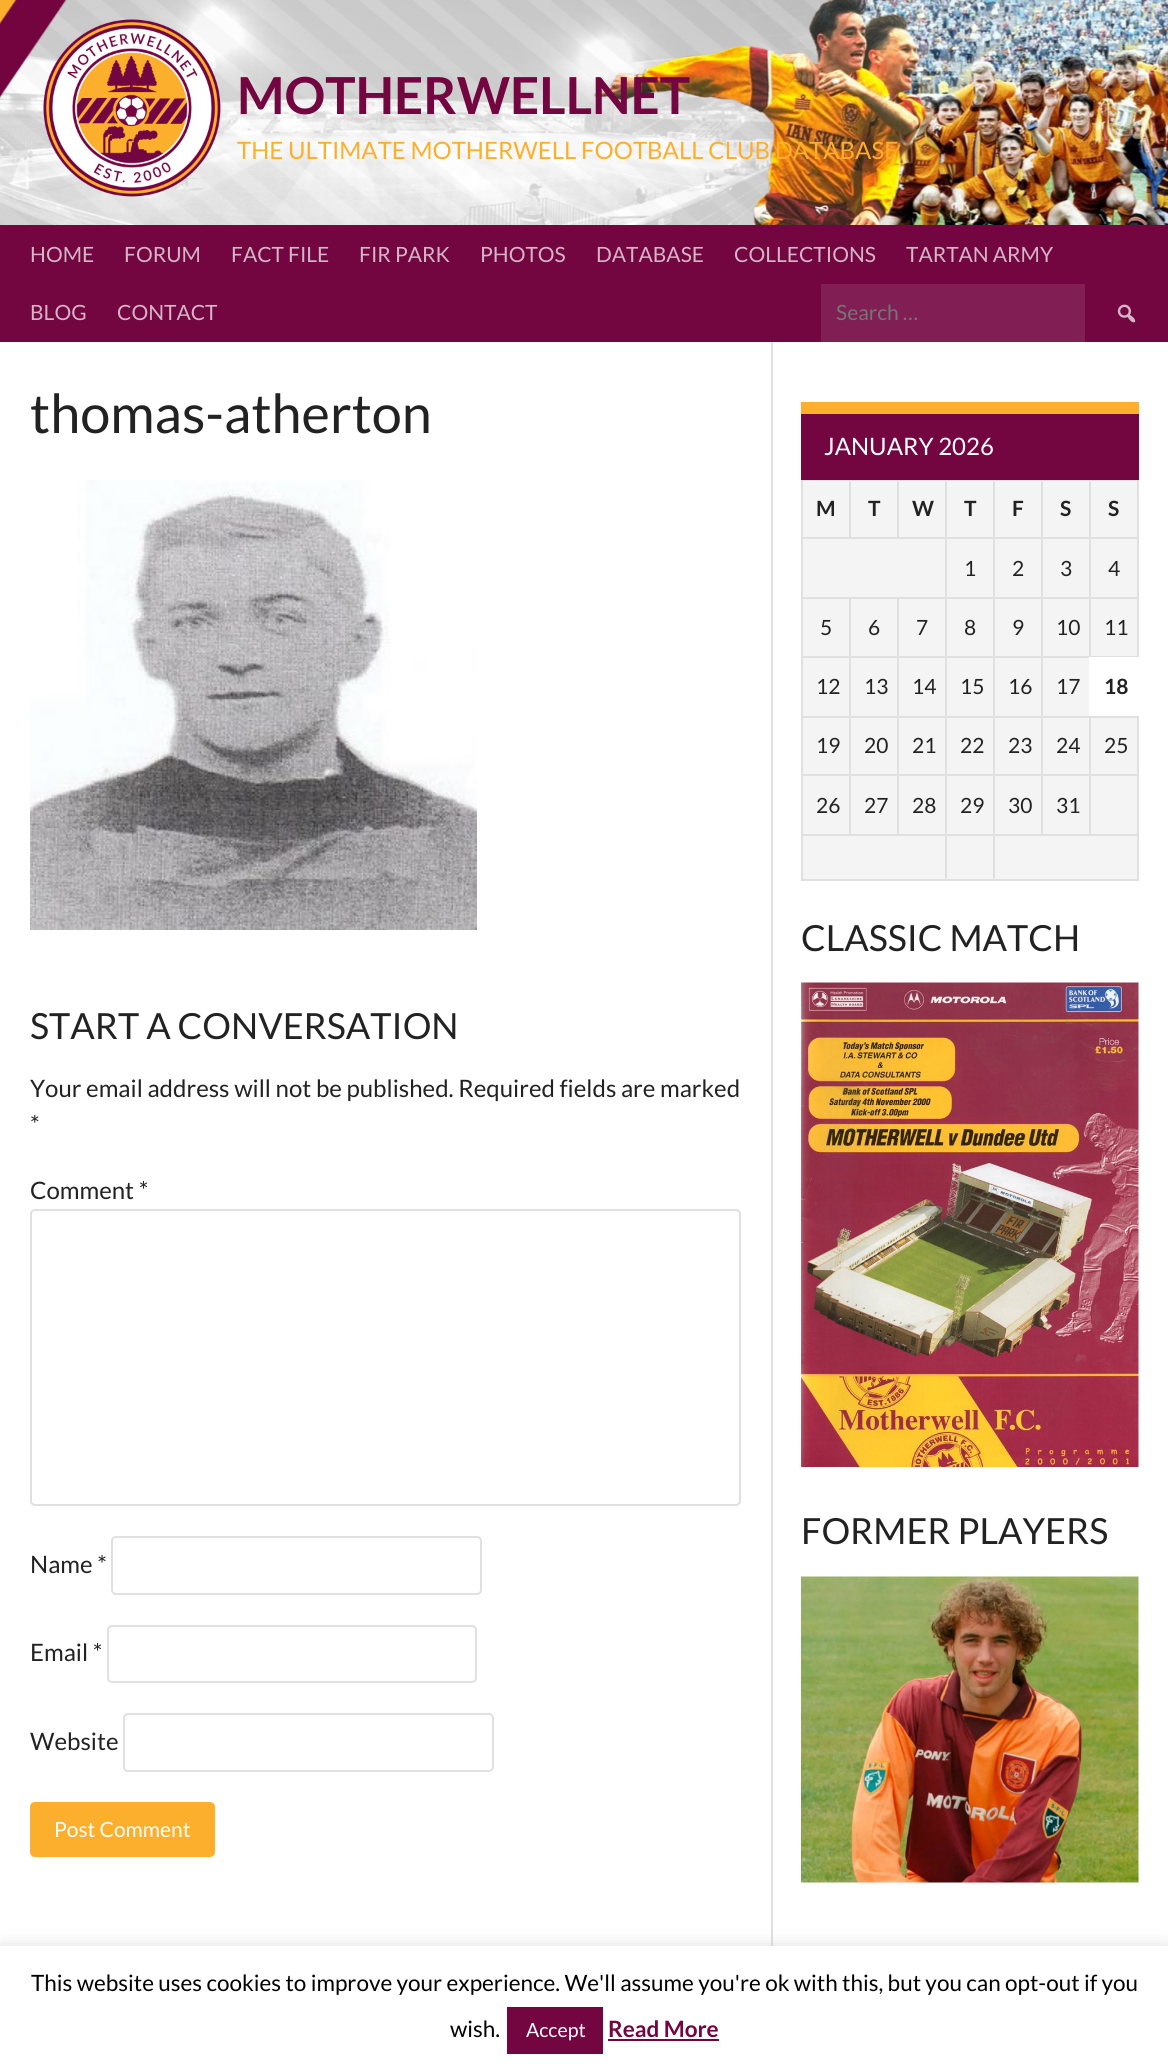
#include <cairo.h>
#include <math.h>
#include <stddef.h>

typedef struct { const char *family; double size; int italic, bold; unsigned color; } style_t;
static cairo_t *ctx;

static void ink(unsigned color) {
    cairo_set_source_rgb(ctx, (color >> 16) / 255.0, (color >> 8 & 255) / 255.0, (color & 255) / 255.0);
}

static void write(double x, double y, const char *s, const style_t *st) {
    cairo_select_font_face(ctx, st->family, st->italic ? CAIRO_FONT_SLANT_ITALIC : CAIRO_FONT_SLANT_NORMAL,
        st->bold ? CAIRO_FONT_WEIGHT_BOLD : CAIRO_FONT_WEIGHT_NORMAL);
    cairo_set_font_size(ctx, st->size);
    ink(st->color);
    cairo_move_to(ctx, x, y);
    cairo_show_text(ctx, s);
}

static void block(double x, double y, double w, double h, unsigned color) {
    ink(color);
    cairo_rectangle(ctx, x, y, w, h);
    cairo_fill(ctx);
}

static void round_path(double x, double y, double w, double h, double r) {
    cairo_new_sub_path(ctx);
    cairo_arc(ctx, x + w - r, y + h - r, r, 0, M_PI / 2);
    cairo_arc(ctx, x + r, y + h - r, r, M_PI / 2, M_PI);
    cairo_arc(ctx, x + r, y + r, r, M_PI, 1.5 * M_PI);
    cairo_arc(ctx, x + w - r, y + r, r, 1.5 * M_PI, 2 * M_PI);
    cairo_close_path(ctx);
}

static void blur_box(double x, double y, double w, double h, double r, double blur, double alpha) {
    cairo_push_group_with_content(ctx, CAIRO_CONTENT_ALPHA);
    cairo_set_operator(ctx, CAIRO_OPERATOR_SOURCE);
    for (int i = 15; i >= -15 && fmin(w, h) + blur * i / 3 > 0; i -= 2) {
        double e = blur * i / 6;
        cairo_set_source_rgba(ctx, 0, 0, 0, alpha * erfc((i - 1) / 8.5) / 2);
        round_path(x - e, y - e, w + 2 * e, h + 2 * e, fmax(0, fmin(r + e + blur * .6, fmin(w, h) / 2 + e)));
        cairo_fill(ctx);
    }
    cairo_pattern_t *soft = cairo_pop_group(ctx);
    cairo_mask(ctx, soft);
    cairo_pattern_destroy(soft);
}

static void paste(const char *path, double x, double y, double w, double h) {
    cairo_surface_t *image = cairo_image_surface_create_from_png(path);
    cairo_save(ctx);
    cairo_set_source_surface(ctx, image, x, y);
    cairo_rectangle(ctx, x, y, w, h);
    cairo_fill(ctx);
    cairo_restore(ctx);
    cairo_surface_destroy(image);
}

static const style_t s1 = {"Lato", 51, 0, 1, 0x730540};
static const style_t s2 = {"Lato", 24, 0, 0, 0xfcaf2c};
static const style_t s3 = {"Lato", 21, 0, 0, 0xd5b4c6};
static const style_t s4 = {"Lato", 21, 0, 0, 0x757575};
static const style_t s5 = {"Lato", 54, 0, 0, 0x222222};
static const style_t s6 = {"Lato", 36, 0, 0, 0x222222};
static const style_t s7 = {"Lato", 24, 0, 0, 0x222222};
static const style_t s8 = {"Lato", 21, 0, 0, 0xffffff};
static const style_t s9 = {"Lato", 24, 0, 0, 0xffffff};
static const style_t s10 = {"Lato", 21, 0, 1, 0x222222};
static const style_t s11 = {"Lato", 21, 0, 0, 0x222222};
static const style_t s12 = {"Lato", 22.5, 0, 0, 0x000000};
static const style_t s13 = {"Lato", 19.5, 0, 0, 0xffffff};
static const style_t s14 = {"Lato", 22.5, 0, 1, 0x730540};

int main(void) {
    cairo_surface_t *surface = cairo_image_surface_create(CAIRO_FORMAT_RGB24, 1168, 2071);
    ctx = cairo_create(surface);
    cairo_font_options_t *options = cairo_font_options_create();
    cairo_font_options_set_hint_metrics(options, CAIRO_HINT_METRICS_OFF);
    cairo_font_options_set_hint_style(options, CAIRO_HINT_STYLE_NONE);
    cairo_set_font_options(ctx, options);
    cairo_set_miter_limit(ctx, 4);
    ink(0xffffff);
    cairo_paint(ctx);
    paste("pic1.png", 0, 0, 1168, 225);
    paste("pic2.png", 43, 19, 178, 178);
    write(237, 114, "MOTHERWELLNET", &s1);
    write(237, 159, "THE ULTIMATE MOTHERWELL FOOTBALL CLUB DATABASE", &s2);
    block(0, 225, 1168, 117, 0x730540);
    write(30, 262, "HOME", &s3);
    write(124, 262, "FORUM", &s3);
    write(231, 262, "FACT FILE", &s3);
    write(359, 262, "FIR PARK", &s3);
    write(480, 262, "PHOTOS", &s3);
    write(596, 262, "DATABASE", &s3);
    write(734, 262, "COLLECTIONS", &s3);
    write(906, 262, "TARTAN ARMY", &s3);
    write(30, 320, "BLOG", &s3);
    write(117, 320, "CONTACT", &s3);
    block(821, 284, 264, 58, 0x811e53);
    write(836, 320, "Search …", &s4);
    paste("pic3.png", 1117, 304, 19, 19);
    write(30, 433, "thomas-atherton", &s5);
    paste("pic4.png", 30, 480, 447, 450);
    write(30, 1039, "START A CONVERSATION", &s6);
    write(30, 1097, "Your email address will not be published. Required fields are marked", &s7);
    write(30, 1133, "*", &s7);
    write(30, 1199, "Comment *", &s7);
    round_path(31, 1210, 709, 295, 4);
    ink(0xe0e0e0);
    cairo_stroke(ctx);
    write(30, 1573, "Name *", &s7);
    round_path(112, 1537, 369, 57, 4);
    ink(0xe0e0e0);
    cairo_stroke(ctx);
    write(30, 1661, "Email *", &s7);
    round_path(108, 1626, 368, 56, 4);
    ink(0xe0e0e0);
    cairo_stroke(ctx);
    write(30, 1750, "Website", &s7);
    round_path(124, 1714, 369, 57, 4);
    ink(0xe0e0e0);
    cairo_stroke(ctx);
    ink(0xfcaf2c);
    round_path(30, 1802, 185, 55, 5);
    cairo_fill(ctx);
    write(54, 1837, "Post Comment", &s8);
    block(771, 342, 2, 1608, 0xe0e0e0);
    block(803, 481, 334, 398, 0xf4f4f4);
    block(1137, 481, 2, 400, 0xe0e0e0);
    block(801, 879, 338, 2, 0xe0e0e0);
    block(801, 481, 2, 400, 0xe0e0e0);
    block(1089, 480, 50, 1, 0xe0e0e0);
    block(1089, 537, 50, 2, 0xe0e0e0);
    block(1089, 597, 50, 2, 0xe0e0e0);
    block(1089, 656, 50, 1, 0xe0e0e0);
    block(1041, 656, 50, 2, 0xe0e0e0);
    block(1089, 597, 2, 60, 0xe0e0e0);
    block(1041, 597, 50, 2, 0xe0e0e0);
    block(1089, 537, 2, 62, 0xe0e0e0);
    block(1041, 537, 50, 2, 0xe0e0e0);
    block(1089, 479, 2, 60, 0xe0e0e0);
    block(1041, 480, 50, 1, 0xe0e0e0);
    block(1089, 716, 50, 2, 0xe0e0e0);
    block(1089, 774, 50, 2, 0xe0e0e0);
    block(1089, 834, 50, 2, 0xe0e0e0);
    block(1089, 774, 2, 62, 0xe0e0e0);
    block(1041, 774, 50, 2, 0xe0e0e0);
    block(1089, 716, 2, 60, 0xe0e0e0);
    block(1041, 716, 50, 2, 0xe0e0e0);
    block(1041, 834, 50, 2, 0xe0e0e0);
    block(1041, 774, 2, 62, 0xe0e0e0);
    block(993, 774, 50, 2, 0xe0e0e0);
    block(1041, 716, 2, 60, 0xe0e0e0);
    block(993, 716, 50, 2, 0xe0e0e0);
    block(1041, 656, 2, 61, 0xe0e0e0);
    block(993, 656, 50, 2, 0xe0e0e0);
    block(1041, 597, 2, 60, 0xe0e0e0);
    block(993, 597, 50, 2, 0xe0e0e0);
    block(1041, 537, 2, 62, 0xe0e0e0);
    block(993, 537, 50, 2, 0xe0e0e0);
    block(1041, 479, 2, 60, 0xe0e0e0);
    block(993, 480, 50, 1, 0xe0e0e0);
    block(993, 834, 50, 2, 0xe0e0e0);
    block(993, 774, 2, 62, 0xe0e0e0);
    block(945, 774, 50, 2, 0xe0e0e0);
    block(993, 716, 2, 60, 0xe0e0e0);
    block(945, 716, 50, 2, 0xe0e0e0);
    block(993, 656, 2, 61, 0xe0e0e0);
    block(945, 656, 50, 2, 0xe0e0e0);
    block(993, 597, 2, 60, 0xe0e0e0);
    block(945, 597, 50, 2, 0xe0e0e0);
    block(993, 537, 2, 62, 0xe0e0e0);
    block(945, 537, 50, 2, 0xe0e0e0);
    block(993, 479, 2, 60, 0xe0e0e0);
    block(945, 480, 50, 1, 0xe0e0e0);
    block(945, 834, 50, 2, 0xe0e0e0);
    block(945, 774, 2, 62, 0xe0e0e0);
    block(897, 774, 50, 2, 0xe0e0e0);
    block(945, 716, 2, 60, 0xe0e0e0);
    block(897, 716, 50, 2, 0xe0e0e0);
    block(945, 656, 2, 61, 0xe0e0e0);
    block(897, 656, 50, 2, 0xe0e0e0);
    block(945, 597, 2, 60, 0xe0e0e0);
    block(897, 597, 50, 2, 0xe0e0e0);
    block(945, 537, 2, 62, 0xe0e0e0);
    block(801, 537, 146, 2, 0xe0e0e0);
    block(945, 479, 2, 60, 0xe0e0e0);
    block(897, 480, 50, 1, 0xe0e0e0);
    block(897, 479, 2, 60, 0xe0e0e0);
    block(849, 480, 50, 1, 0xe0e0e0);
    block(849, 479, 2, 60, 0xe0e0e0);
    block(801, 414, 338, 66, 0x730540);
    block(801, 402, 338, 12, 0xfcaf2c);
    write(824, 455, "JANUARY 2026", &s9);
    block(801, 480, 50, 1, 0xe0e0e0);
    write(816, 516, "M", &s10);
    write(868, 516, "T", &s10);
    write(912, 516, "W", &s10);
    write(964, 516, "T", &s10);
    write(1012, 516, "F", &s10);
    write(1060, 516, "S", &s10);
    write(1108, 516, "S", &s10);
    write(964, 576, "1", &s11);
    write(1012, 576, "2", &s11);
    write(1060, 576, "3", &s11);
    write(1108, 576, "4", &s11);
    block(897, 834, 50, 2, 0xe0e0e0);
    block(897, 774, 2, 62, 0xe0e0e0);
    block(849, 774, 50, 2, 0xe0e0e0);
    block(897, 716, 2, 60, 0xe0e0e0);
    block(849, 716, 50, 2, 0xe0e0e0);
    block(897, 656, 2, 61, 0xe0e0e0);
    block(849, 656, 50, 2, 0xe0e0e0);
    block(897, 597, 2, 60, 0xe0e0e0);
    block(849, 597, 50, 2, 0xe0e0e0);
    block(849, 834, 50, 2, 0xe0e0e0);
    block(849, 774, 2, 62, 0xe0e0e0);
    block(801, 774, 50, 2, 0xe0e0e0);
    block(849, 716, 2, 60, 0xe0e0e0);
    block(801, 716, 50, 2, 0xe0e0e0);
    block(849, 656, 2, 61, 0xe0e0e0);
    block(801, 656, 50, 2, 0xe0e0e0);
    block(849, 597, 2, 60, 0xe0e0e0);
    block(801, 597, 50, 2, 0xe0e0e0);
    write(820, 635, "5", &s11);
    write(868, 635, "6", &s11);
    write(916, 635, "7", &s11);
    write(964, 635, "8", &s11);
    write(1012, 635, "9", &s11);
    write(1056, 635, "10", &s11);
    write(1104, 635, "11", &s11);
    write(816, 694, "12", &s11);
    write(864, 694, "13", &s11);
    write(912, 694, "14", &s11);
    write(960, 694, "15", &s11);
    write(1008, 694, "16", &s11);
    write(1056, 694, "17", &s11);
    block(1089, 657, 50, 59, 0xffffff);
    write(1104, 694, "18", &s10);
    write(816, 753, "19", &s11);
    write(864, 753, "20", &s11);
    write(912, 753, "21", &s11);
    write(960, 753, "22", &s11);
    write(1008, 753, "23", &s11);
    write(1056, 753, "24", &s11);
    write(1104, 753, "25", &s11);
    block(801, 834, 50, 2, 0xe0e0e0);
    write(816, 813, "26", &s11);
    write(864, 813, "27", &s11);
    write(912, 813, "28", &s11);
    write(960, 813, "29", &s11);
    write(1008, 813, "30", &s11);
    write(1056, 813, "31", &s11);
    block(945, 834, 2, 47, 0xe0e0e0);
    block(993, 834, 2, 47, 0xe0e0e0);
    write(801, 951, "CLASSIC MATCH", &s6);
    paste("pic5.png", 801, 982, 338, 485);
    write(801, 1544, "FORMER PLAYERS", &s6);
    paste("pic6.png", 801, 1576, 338, 307);
    ink(0xacabab);
    blur_box(0, 1944, 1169, 126, 0, 7.5, 0.3);
    block(0, 1946, 1168, 125, 0xffffff);
    write(31, 1991, "This website uses cookies to improve your experience. We'll assume you're ok with this, but you can opt-out if you", &s12);
    write(450, 2037, "wish.", &s12);
    block(507, 2007, 96, 47, 0x730540);
    write(526, 2037, "Accept", &s13);
    write(608, 2037, "Read More", &s14);
    block(608, 2039, 111, 2, 0x730540);
    cairo_surface_write_to_png(surface, "screenshot.png");
    cairo_font_options_destroy(options);
    cairo_destroy(ctx);
    cairo_surface_destroy(surface);
    return 0;
}
